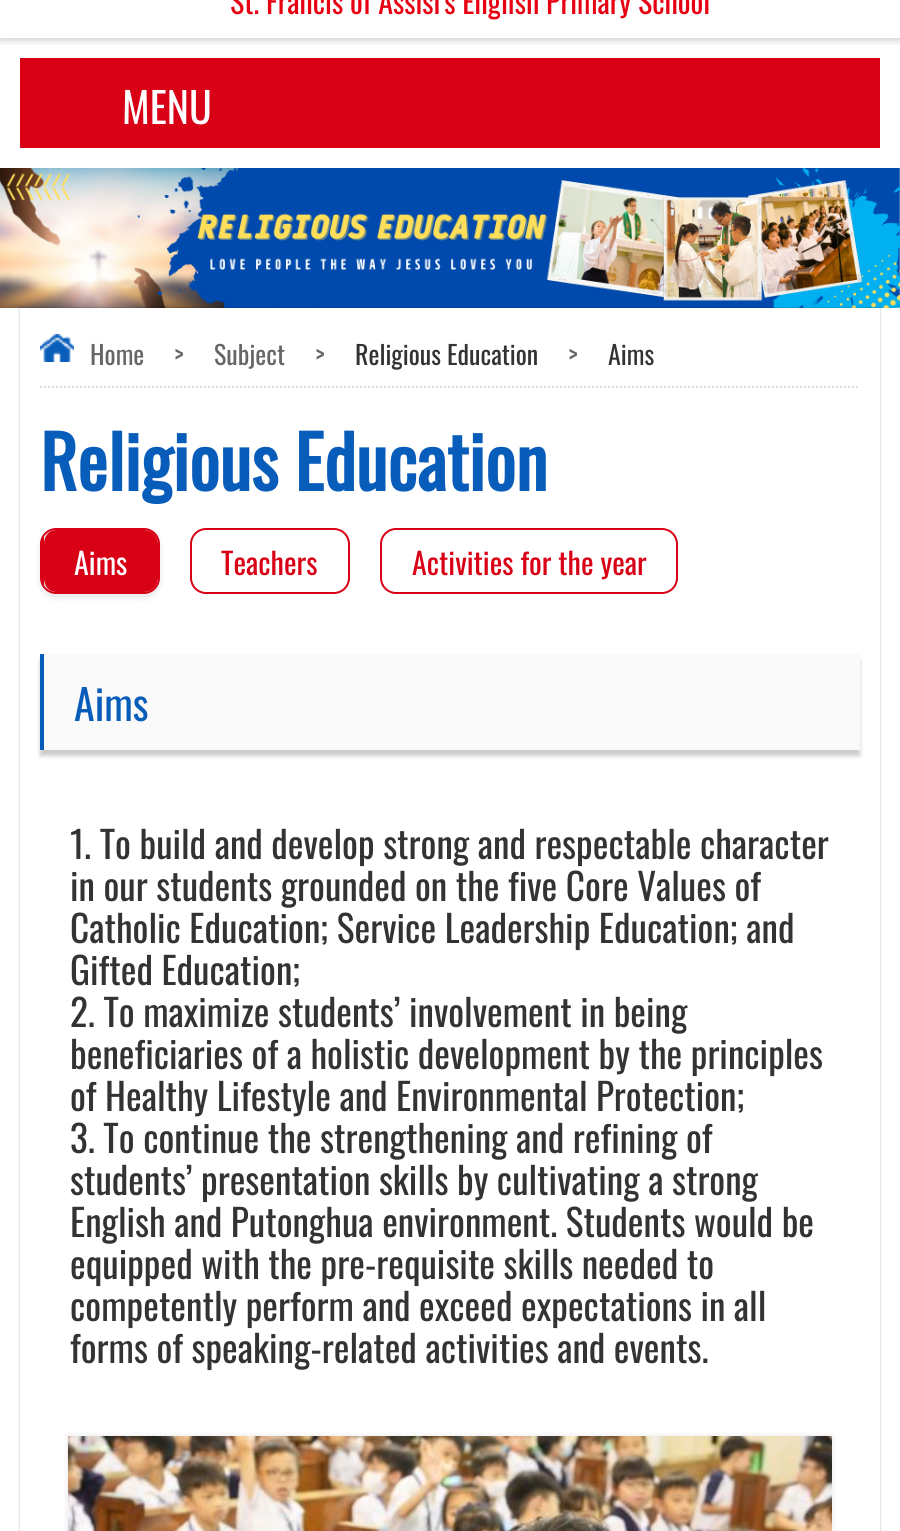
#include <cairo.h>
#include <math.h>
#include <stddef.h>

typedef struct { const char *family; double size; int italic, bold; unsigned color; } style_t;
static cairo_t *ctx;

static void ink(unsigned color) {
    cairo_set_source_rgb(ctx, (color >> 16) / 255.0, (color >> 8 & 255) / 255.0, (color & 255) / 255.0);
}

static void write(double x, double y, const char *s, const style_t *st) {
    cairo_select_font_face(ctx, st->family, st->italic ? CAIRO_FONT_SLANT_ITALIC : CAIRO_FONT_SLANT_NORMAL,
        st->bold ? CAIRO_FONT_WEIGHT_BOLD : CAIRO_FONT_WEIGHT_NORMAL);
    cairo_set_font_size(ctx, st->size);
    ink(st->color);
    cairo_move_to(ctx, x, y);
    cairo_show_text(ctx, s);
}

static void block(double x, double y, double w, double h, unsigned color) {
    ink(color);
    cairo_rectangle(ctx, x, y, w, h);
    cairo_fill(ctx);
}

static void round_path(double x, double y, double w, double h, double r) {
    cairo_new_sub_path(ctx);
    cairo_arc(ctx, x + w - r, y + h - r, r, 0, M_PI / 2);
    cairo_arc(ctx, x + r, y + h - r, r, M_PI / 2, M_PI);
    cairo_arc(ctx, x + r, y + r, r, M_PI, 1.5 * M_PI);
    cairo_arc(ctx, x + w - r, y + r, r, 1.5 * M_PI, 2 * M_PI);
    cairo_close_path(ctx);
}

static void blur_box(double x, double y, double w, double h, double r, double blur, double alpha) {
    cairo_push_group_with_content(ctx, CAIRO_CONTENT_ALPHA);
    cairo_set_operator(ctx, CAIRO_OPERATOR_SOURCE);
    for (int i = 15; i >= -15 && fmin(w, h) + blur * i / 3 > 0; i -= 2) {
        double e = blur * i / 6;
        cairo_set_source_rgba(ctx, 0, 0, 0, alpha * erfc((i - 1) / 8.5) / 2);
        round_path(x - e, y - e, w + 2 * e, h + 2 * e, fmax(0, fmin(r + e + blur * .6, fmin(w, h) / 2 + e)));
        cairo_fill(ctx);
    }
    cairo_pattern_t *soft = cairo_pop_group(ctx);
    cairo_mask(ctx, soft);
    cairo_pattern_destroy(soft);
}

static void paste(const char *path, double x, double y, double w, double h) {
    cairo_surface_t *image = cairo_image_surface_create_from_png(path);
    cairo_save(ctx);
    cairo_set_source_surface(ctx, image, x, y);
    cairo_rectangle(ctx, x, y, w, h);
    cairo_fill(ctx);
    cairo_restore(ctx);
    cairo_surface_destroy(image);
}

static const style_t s1 = {"Oswald", 30, 0, 0, 0xe60012};
static const style_t s2 = {"Oswald", 42, 0, 0, 0xffffff};
static const style_t s3 = {"Oswald", 26, 0, 0, 0x666666};
static const style_t s4 = {"Oswald", 26, 0, 0, 0x333333};
static const style_t s5 = {"Oswald", 72, 0, 1, 0x085cba};
static const style_t s6 = {"Oswald", 30, 0, 0, 0xffffff};
static const style_t s7 = {"Oswald", 30, 0, 0, 0xd90116};
static const style_t s8 = {"Oswald", 42, 0, 0, 0x085cba};
static const style_t s9 = {"Oswald", 37.3, 0, 0, 0x333333};

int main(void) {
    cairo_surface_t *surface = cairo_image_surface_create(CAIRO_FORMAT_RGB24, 900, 1531);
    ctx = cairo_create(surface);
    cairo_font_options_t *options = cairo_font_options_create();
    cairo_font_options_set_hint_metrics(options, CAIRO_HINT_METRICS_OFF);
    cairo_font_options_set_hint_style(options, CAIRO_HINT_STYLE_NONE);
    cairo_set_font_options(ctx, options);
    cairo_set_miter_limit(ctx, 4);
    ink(0xffffff);
    cairo_paint(ctx);
    cairo_save(ctx);
    cairo_rectangle(ctx, 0, 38, 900, 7);
    cairo_clip(ctx);
    ink(0x000000);
    blur_box(0, -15, 900, 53, 0, 5, 0.3);
    cairo_restore(ctx);
    write(230, 14, "St. Francis of Assisi's English Primary School", &s1);
    block(20, 58, 860, 90, 0xd80115);
    write(122, 124, "MENU", &s2);
    paste("pic1.png", 0, 168, 900, 140);
    cairo_save(ctx);
    cairo_set_fill_rule(ctx, CAIRO_FILL_RULE_EVEN_ODD);
    cairo_new_path(ctx);
    cairo_move_to(ctx, 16, 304);
    cairo_line_to(ctx, 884, 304);
    cairo_line_to(ctx, 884, 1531);
    cairo_line_to(ctx, 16, 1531);
    cairo_close_path(ctx);
    cairo_move_to(ctx, 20, 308);
    cairo_line_to(ctx, 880, 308);
    cairo_line_to(ctx, 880, 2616);
    cairo_line_to(ctx, 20, 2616);
    cairo_close_path(ctx);
    cairo_clip(ctx);
    ink(0x000000);
    blur_box(20, 308, 860, 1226, 0, 1, 0.3);
    cairo_restore(ctx);
    cairo_new_path(ctx);
    cairo_move_to(ctx, 40, 387);
    cairo_line_to(ctx, 860, 387);
    ink(0xdddddd);
    cairo_set_dash(ctx, (double[]){2, 2}, 2, 0);
    cairo_stroke(ctx);
    paste("pic2.png", 40, 334, 34, 28);
    write(90, 365, "Home", &s3);
    write(174, 365, ">", &s3);
    write(214, 365, "Subject", &s3);
    write(315, 365, ">", &s3);
    write(355, 365, "Religious Education", &s4);
    write(568, 365, ">", &s3);
    write(608, 365, "Aims", &s4);
    write(40, 491, "Religious Education", &s5);
    ink(0x000000);
    blur_box(40, 532, 120, 66, 16, 3, 0.1);
    ink(0xd90116);
    cairo_new_path(ctx);
    cairo_move_to(ctx, 56, 530);
    cairo_line_to(ctx, 144, 530);
    cairo_curve_to(ctx, 152, 530, 158, 536, 158, 544);
    cairo_line_to(ctx, 158, 578);
    cairo_curve_to(ctx, 158, 586, 152, 592, 144, 592);
    cairo_line_to(ctx, 56, 592);
    cairo_curve_to(ctx, 49, 592, 44, 586, 44, 578);
    cairo_line_to(ctx, 44, 544);
    cairo_curve_to(ctx, 44, 536, 49, 530, 56, 530);
    cairo_close_path(ctx);
    cairo_fill(ctx);
    round_path(41, 529, 118, 64, 15);
    cairo_set_dash(ctx, NULL, 0, 0);
    cairo_stroke(ctx);
    block(42, 536, 2, 50, 0xd90116);
    write(74, 575, "Aims", &s6);
    round_path(191, 529, 158, 64, 15);
    ink(0xd90116);
    cairo_stroke(ctx);
    write(221, 575, "Teachers", &s7);
    round_path(381, 529, 296, 64, 15);
    cairo_stroke(ctx);
    write(412, 575, "Activities for the year", &s7);
    ink(0x000000);
    blur_box(40, 660, 820, 96, 0, 2, 0.2);
    block(44, 654, 816, 96, 0xfafafa);
    block(40, 654, 4, 96, 0x085cba);
    write(74, 721, "Aims", &s8);
    write(70, 859, "1. To build and develop strong and respectable character", &s9);
    write(70, 901, "in our students grounded on the five Core Values of", &s9);
    write(70, 943, "Catholic Education; Service Leadership Education; and", &s9);
    write(70, 985, "Gifted Education;", &s9);
    write(70, 1027, "2. To maximize students’ involvement in being", &s9);
    write(70, 1069, "beneficiaries of a holistic development by the principles", &s9);
    write(70, 1111, "of Healthy Lifestyle and Environmental Protection;", &s9);
    write(70, 1153, "3. To continue the strengthening and refining of", &s9);
    write(70, 1195, "students’ presentation skills by cultivating a strong", &s9);
    write(70, 1237, "English and Putonghua environment. Students would be", &s9);
    write(70, 1279, "equipped with the pre-requisite skills needed to", &s9);
    write(70, 1321, "competently perform and exceed expectations in all", &s9);
    write(70, 1363, "forms of speaking-related activities and events.", &s9);
    ink(0x000000);
    blur_box(68, 1436, 764, 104, 0, 3, 0.1);
    paste("pic3.png", 68, 1436, 764, 95);
    cairo_surface_write_to_png(surface, "screenshot.png");
    cairo_font_options_destroy(options);
    cairo_destroy(ctx);
    cairo_surface_destroy(surface);
    return 0;
}
